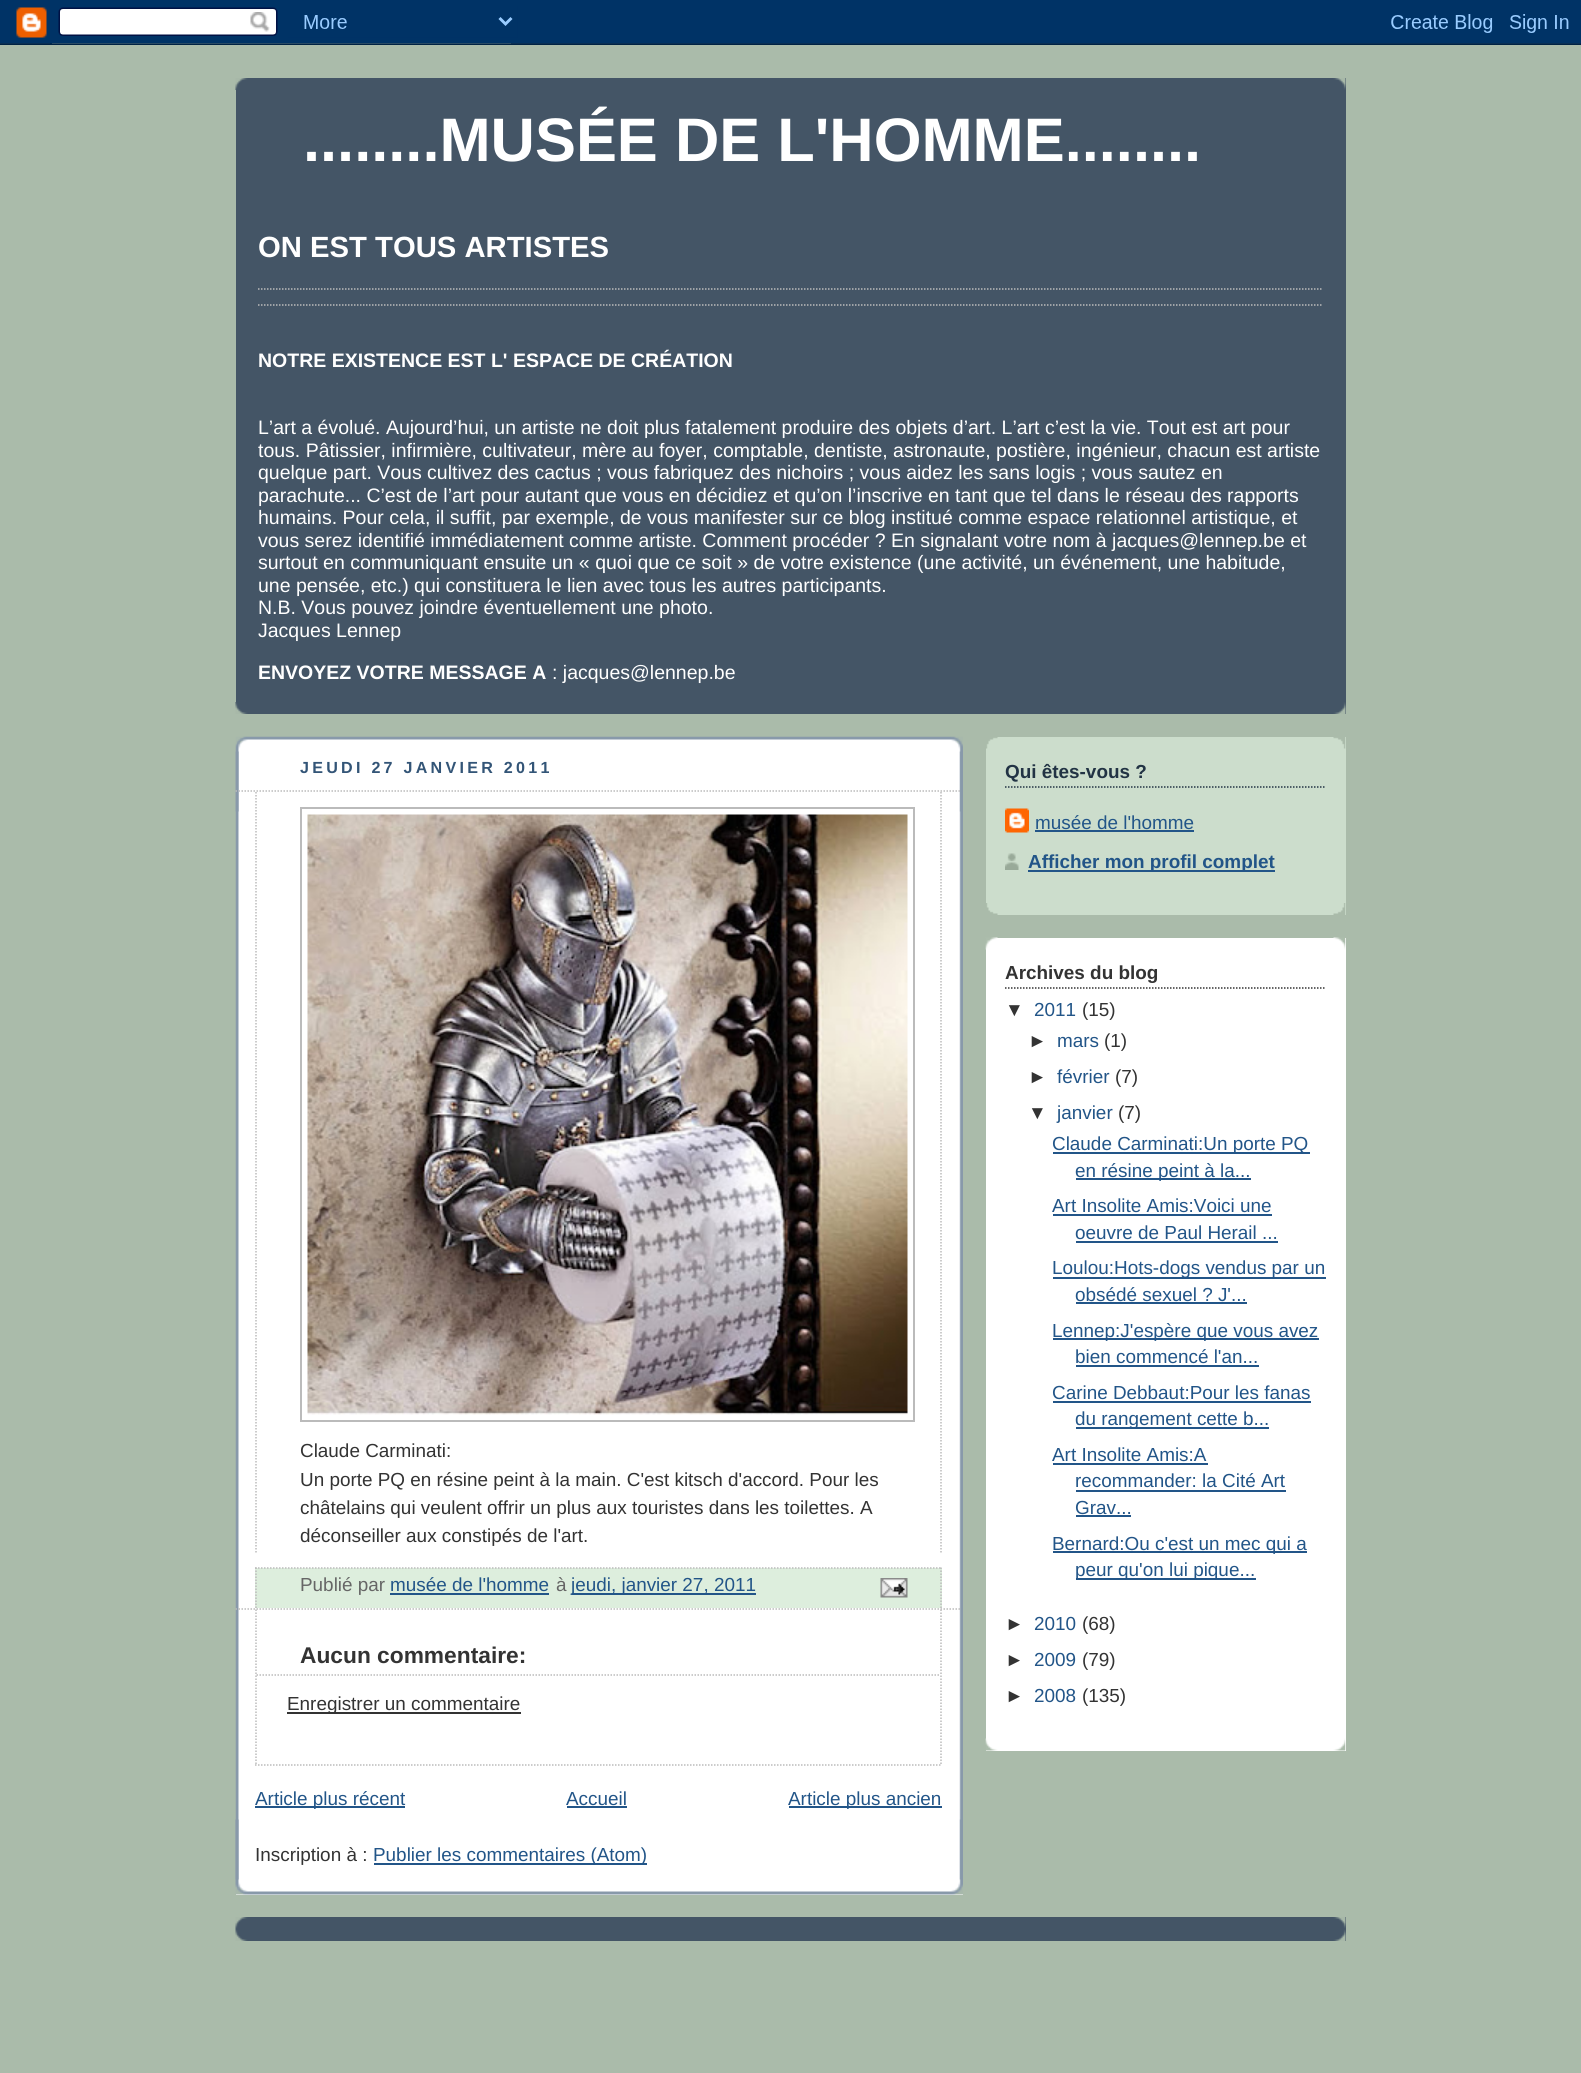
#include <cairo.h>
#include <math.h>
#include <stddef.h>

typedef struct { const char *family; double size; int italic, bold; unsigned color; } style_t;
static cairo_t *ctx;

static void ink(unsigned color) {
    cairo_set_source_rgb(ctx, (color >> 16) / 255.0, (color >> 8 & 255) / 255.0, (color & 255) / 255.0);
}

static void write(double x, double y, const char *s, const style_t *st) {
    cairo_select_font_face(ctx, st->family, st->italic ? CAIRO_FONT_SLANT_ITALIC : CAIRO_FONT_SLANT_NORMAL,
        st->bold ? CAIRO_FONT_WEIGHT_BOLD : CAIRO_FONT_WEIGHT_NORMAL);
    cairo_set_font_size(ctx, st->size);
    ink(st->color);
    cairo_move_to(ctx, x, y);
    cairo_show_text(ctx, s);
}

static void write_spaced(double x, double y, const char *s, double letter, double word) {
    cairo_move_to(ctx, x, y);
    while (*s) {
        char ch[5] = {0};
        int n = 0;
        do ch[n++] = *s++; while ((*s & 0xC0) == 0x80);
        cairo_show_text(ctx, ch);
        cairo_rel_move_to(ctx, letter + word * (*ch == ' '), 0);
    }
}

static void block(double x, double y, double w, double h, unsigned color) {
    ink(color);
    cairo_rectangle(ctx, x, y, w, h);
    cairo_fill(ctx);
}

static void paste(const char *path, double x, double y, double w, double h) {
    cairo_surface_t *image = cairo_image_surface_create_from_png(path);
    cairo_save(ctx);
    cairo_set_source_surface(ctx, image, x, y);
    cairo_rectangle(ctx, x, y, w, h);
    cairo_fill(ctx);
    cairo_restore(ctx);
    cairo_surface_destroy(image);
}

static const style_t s1 = {"Liberation Sans", 61.4, 0, 1, 0xffffff};
static const style_t s2 = {"Liberation Sans", 29.25, 0, 1, 0xffffff};
static const style_t s3 = {"Liberation Sans", 19.5, 0, 1, 0xffffff};
static const style_t s4 = {"Liberation Sans", 19.5, 0, 0, 0xffffff};
static const style_t s5 = {"Liberation Sans", 18.9, 0, 0, 0x333333};
static const style_t s6 = {"Liberation Sans", 18.9, 0, 0, 0x666666};
static const style_t s7 = {"Liberation Sans", 18.9, 0, 0, 0x225588};
static const style_t s8 = {"Liberation Sans", 22.75, 0, 1, 0x333333};
static const style_t s9 = {"Liberation Sans", 18.9, 0, 1, 0x223344};
static const style_t s10 = {"Liberation Sans", 18.9, 0, 1, 0x225588};
static const style_t s11 = {"Liberation Sans", 18.9, 0, 1, 0x333333};

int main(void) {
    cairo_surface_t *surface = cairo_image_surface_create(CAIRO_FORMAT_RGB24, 1581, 2073);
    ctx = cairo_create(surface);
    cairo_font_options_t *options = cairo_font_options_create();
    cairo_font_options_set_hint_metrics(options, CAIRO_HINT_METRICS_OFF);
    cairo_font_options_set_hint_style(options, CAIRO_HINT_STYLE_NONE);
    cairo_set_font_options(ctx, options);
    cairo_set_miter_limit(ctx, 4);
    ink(0xaabbaa);
    cairo_paint(ctx);
    paste("pic1.png", 0, 0, 1581, 45);
    block(236, 78, 1110, 636, 0x445566);
    paste("pic2.png", 235, 78, 1111, 12);
    paste("pic3.png", 235, 702, 1111, 12);
    write(303, 161, "........MUSÉE DE L'HOMME........", &s1);
    write(258, 257, "ON EST TOUS ARTISTES", &s2);
    cairo_new_path(ctx);
    cairo_move_to(ctx, 258, 289);
    cairo_line_to(ctx, 1323, 289);
    ink(0xbbbbbb);
    cairo_set_line_width(ctx, 1.5);
    cairo_set_dash(ctx, (double[]){1.5, 1.5}, 2, 0);
    cairo_stroke(ctx);
    cairo_new_path(ctx);
    cairo_move_to(ctx, 258, 305);
    cairo_line_to(ctx, 1323, 305);
    cairo_stroke(ctx);
    write(258, 367, "NOTRE EXISTENCE EST L' ESPACE DE CRÉATION", &s3);
    write(258, 434, "L’art a évolué. Aujourd’hui, un artiste ne doit plus fatalement produire des objets d’art. L’art c’est la vie. Tout est art pour", &s4);
    write(258, 457, "tous. Pâtissier, infirmière, cultivateur, mère au foyer, comptable, dentiste, astronaute, postière, ingénieur, chacun est artiste", &s4);
    write(258, 479, "quelque part. Vous cultivez des cactus ; vous fabriquez des nichoirs ; vous aidez les sans logis ; vous sautez en", &s4);
    write(258, 502, "parachute... C’est de l’art pour autant que vous en décidiez et qu’on l’inscrive en tant que tel dans le réseau des rapports", &s4);
    write(258, 524, "humains. Pour cela, il suffit, par exemple, de vous manifester sur ce blog institué comme espace relationnel artistique, et", &s4);
    write(258, 547, "vous serez identifié immédiatement comme artiste. Comment procéder ? En signalant votre nom à jacques@lennep.be et", &s4);
    write(258, 569, "surtout en communiquant ensuite un « quoi que ce soit » de votre existence (une activité, un événement, une habitude,", &s4);
    write(258, 592, "une pensée, etc.) qui constituera le lien avec tous les autres participants.", &s4);
    write(258, 614, "N.B. Vous pouvez joindre éventuellement une photo.", &s4);
    write(258, 637, "Jacques Lennep", &s4);
    write(258, 679, "ENVOYEZ VOTRE MESSAGE A", &s3);
    write(552, 679, ": jacques@lennep.be", &s4);
    block(236, 739, 727, 1156, 0xffffff);
    paste("pic4.png", 235, 1819, 728, 76);
    paste("pic5.png", 235, 736, 728, 76);
    paste("pic6.png", 235, 751, 728, 1129);
    cairo_select_font_face(ctx, "Liberation Sans", CAIRO_FONT_SLANT_NORMAL, CAIRO_FONT_WEIGHT_BOLD);
    cairo_set_font_size(ctx, 16.1);
    ink(0x335577);
    write_spaced(300, 773, "JEUDI 27 JANVIER 2011", 3.25, 0);
    cairo_new_path(ctx);
    cairo_move_to(ctx, 235.5, 791);
    cairo_line_to(ctx, 961.5, 791);
    ink(0xbbbbbb);
    cairo_stroke(ctx);
    cairo_new_path(ctx);
    cairo_move_to(ctx, 235.5, 1609);
    cairo_line_to(ctx, 961.5, 1609);
    cairo_stroke(ctx);
    cairo_new_path(ctx);
    cairo_move_to(ctx, 941, 792);
    cairo_line_to(ctx, 941, 1552.5);
    cairo_stroke(ctx);
    cairo_new_path(ctx);
    cairo_move_to(ctx, 256, 792);
    cairo_line_to(ctx, 256, 1552.5);
    cairo_stroke(ctx);
    cairo_rectangle(ctx, 301, 808, 613, 613);
    cairo_set_line_width(ctx, 2);
    cairo_set_dash(ctx, NULL, 0, 0);
    cairo_stroke(ctx);
    paste("pic7.png", 307, 814, 601, 601);
    write(300, 1457, "Claude Carminati:", &s5);
    write(300, 1486, "Un porte PQ en résine peint à la main. C'est kitsch d'accord. Pour les", &s5);
    write(300, 1514, "châtelains qui veulent offrir un plus aux touristes dans les toilettes. A", &s5);
    write(300, 1542, "déconseiller aux constipés de l'art.", &s5);
    block(255, 1568, 687, 40, 0xddeedd);
    cairo_new_path(ctx);
    cairo_move_to(ctx, 255, 1568);
    cairo_line_to(ctx, 942, 1568);
    ink(0xbbbbbb);
    cairo_set_line_width(ctx, 1.5);
    cairo_set_dash(ctx, (double[]){1.5, 1.5}, 2, 0);
    cairo_stroke(ctx);
    cairo_new_path(ctx);
    cairo_move_to(ctx, 941, 1567.5);
    cairo_line_to(ctx, 941, 1608);
    cairo_stroke(ctx);
    cairo_new_path(ctx);
    cairo_move_to(ctx, 256, 1567.5);
    cairo_line_to(ctx, 256, 1608);
    cairo_stroke(ctx);
    write(300, 1591, "Publié par", &s6);
    write(390, 1591, "musée de l'homme", &s7);
    block(390, 1593, 159, 2, 0x225588);
    write(556, 1591, "à", &s6);
    cairo_new_path(ctx);
    cairo_move_to(ctx, 571.5, 1594);
    cairo_line_to(ctx, 756.5, 1594);
    ink(0x225588);
    cairo_stroke(ctx);
    block(572, 1593, 184, 2, 0x225588);
    write(571, 1591, "jeudi, janvier 27, 2011", &s7);
    paste("pic8.png", 880, 1578, 28, 20);
    cairo_new_path(ctx);
    cairo_move_to(ctx, 941, 1609.5);
    cairo_line_to(ctx, 941, 1765.5);
    ink(0xbbbbbb);
    cairo_stroke(ctx);
    cairo_new_path(ctx);
    cairo_move_to(ctx, 255, 1765);
    cairo_line_to(ctx, 942, 1765);
    cairo_stroke(ctx);
    cairo_new_path(ctx);
    cairo_move_to(ctx, 256, 1609.5);
    cairo_line_to(ctx, 256, 1765.5);
    cairo_stroke(ctx);
    cairo_new_path(ctx);
    cairo_move_to(ctx, 256.5, 1675);
    cairo_line_to(ctx, 940.5, 1675);
    cairo_stroke(ctx);
    write(300, 1663, "Aucun commentaire:", &s8);
    block(287, 1712, 234, 2, 0x333333);
    write(287, 1710, "Enregistrer un commentaire", &s5);
    block(255, 1806, 150, 2, 0x225588);
    write(255, 1805, "Article plus récent", &s7);
    write(566, 1805, "Accueil", &s7);
    block(567, 1806, 60, 2, 0x225588);
    block(789, 1806, 153, 2, 0x225588);
    write(788, 1805, "Article plus ancien", &s7);
    write(255, 1861, "Inscription à :", &s5);
    block(374, 1863, 273, 2, 0x225588);
    write(373, 1861, "Publier les commentaires (Atom)", &s7);
    block(986, 737, 360, 178, 0xccddcc);
    paste("pic9.png", 986, 903, 360, 12);
    paste("pic10.png", 986, 737, 360, 12);
    cairo_new_path(ctx);
    cairo_move_to(ctx, 1005, 787);
    cairo_line_to(ctx, 1326, 787);
    ink(0x223344);
    cairo_stroke(ctx);
    write(1005, 778, "Qui êtes-vous ?", &s9);
    paste("pic11.png", 1005, 808, 24, 25);
    write(1035, 829, "musée de l'homme", &s7);
    block(1035, 830, 159, 2, 0x225588);
    paste("pic12.png", 1005, 853, 14, 17);
    block(1028, 870, 247, 2, 0x225588);
    write(1028, 868, "Afficher mon profil complet", &s10);
    block(986, 938, 360, 813, 0xffffff);
    paste("pic13.png", 985, 937, 361, 13);
    paste("pic14.png", 985, 1738, 361, 13);
    cairo_new_path(ctx);
    cairo_move_to(ctx, 1005, 988);
    cairo_line_to(ctx, 1326, 988);
    ink(0x333333);
    cairo_stroke(ctx);
    write(1005, 979, "Archives du blog", &s11);
    write(1005, 1016, "▼", &s5);
    write(1034, 1016, "2011", &s7);
    write(1082, 1016, "(15)", &s5);
    write(1028, 1047, "►", &s5);
    write(1057, 1047, "mars", &s7);
    write(1104, 1047, "(1)", &s5);
    write(1028, 1083, "►", &s5);
    write(1057, 1083, "février", &s7);
    write(1115, 1083, "(7)", &s5);
    write(1028, 1119, "▼", &s5);
    write(1057, 1119, "janvier", &s7);
    write(1118, 1119, "(7)", &s5);
    block(1053, 1152, 257, 2, 0x225588);
    write(1052, 1150, "Claude Carminati:Un porte PQ", &s7);
    block(1076, 1178, 175, 2, 0x225588);
    write(1075, 1177, "en résine peint à la...", &s7);
    write(1052, 1212, "Art Insolite Amis:Voici une", &s7);
    block(1053, 1214, 219, 2, 0x225588);
    write(1075, 1239, "oeuvre de Paul Herail ...", &s7);
    block(1076, 1241, 202, 2, 0x225588);
    block(1053, 1277, 273, 2, 0x225588);
    write(1052, 1274, "Loulou:Hots-dogs vendus par un", &s7);
    write(1075, 1301, "obsédé sexuel ? J'...", &s7);
    block(1076, 1302, 171, 2, 0x225588);
    block(1053, 1338, 266, 2, 0x225588);
    write(1052, 1337, "Lennep:J'espère que vous avez", &s7);
    write(1075, 1363, "bien commencé l'an...", &s7);
    block(1076, 1365, 183, 2, 0x225588);
    write(1052, 1399, "Carine Debbaut:Pour les fanas", &s7);
    block(1053, 1401, 258, 2, 0x225588);
    block(1076, 1427, 193, 2, 0x225588);
    write(1075, 1425, "du rangement cette b...", &s7);
    write(1052, 1461, "Art Insolite Amis:A", &s7);
    block(1053, 1463, 155, 2, 0x225588);
    write(1075, 1487, "recommander: la Cité Art", &s7);
    block(1076, 1490, 210, 2, 0x225588);
    write(1075, 1514, "Grav...", &s7);
    block(1076, 1515, 55, 2, 0x225588);
    block(1053, 1551, 254, 2, 0x225588);
    write(1052, 1550, "Bernard:Ou c'est un mec qui a", &s7);
    block(1076, 1578, 180, 2, 0x225588);
    write(1075, 1576, "peur qu'on lui pique...", &s7);
    write(1005, 1630, "►", &s5);
    write(1034, 1630, "2010", &s7);
    write(1082, 1630, "(68)", &s5);
    write(1005, 1666, "►", &s5);
    write(1034, 1666, "2009", &s7);
    write(1082, 1666, "(79)", &s5);
    write(1005, 1702, "►", &s5);
    write(1034, 1702, "2008", &s7);
    write(1082, 1702, "(135)", &s5);
    block(236, 1917, 1110, 24, 0x445566);
    paste("pic2.png", 235, 1917, 1111, 12);
    paste("pic3.png", 235, 1929, 1111, 12);
    cairo_surface_write_to_png(surface, "screenshot.png");
    cairo_font_options_destroy(options);
    cairo_destroy(ctx);
    cairo_surface_destroy(surface);
    return 0;
}
